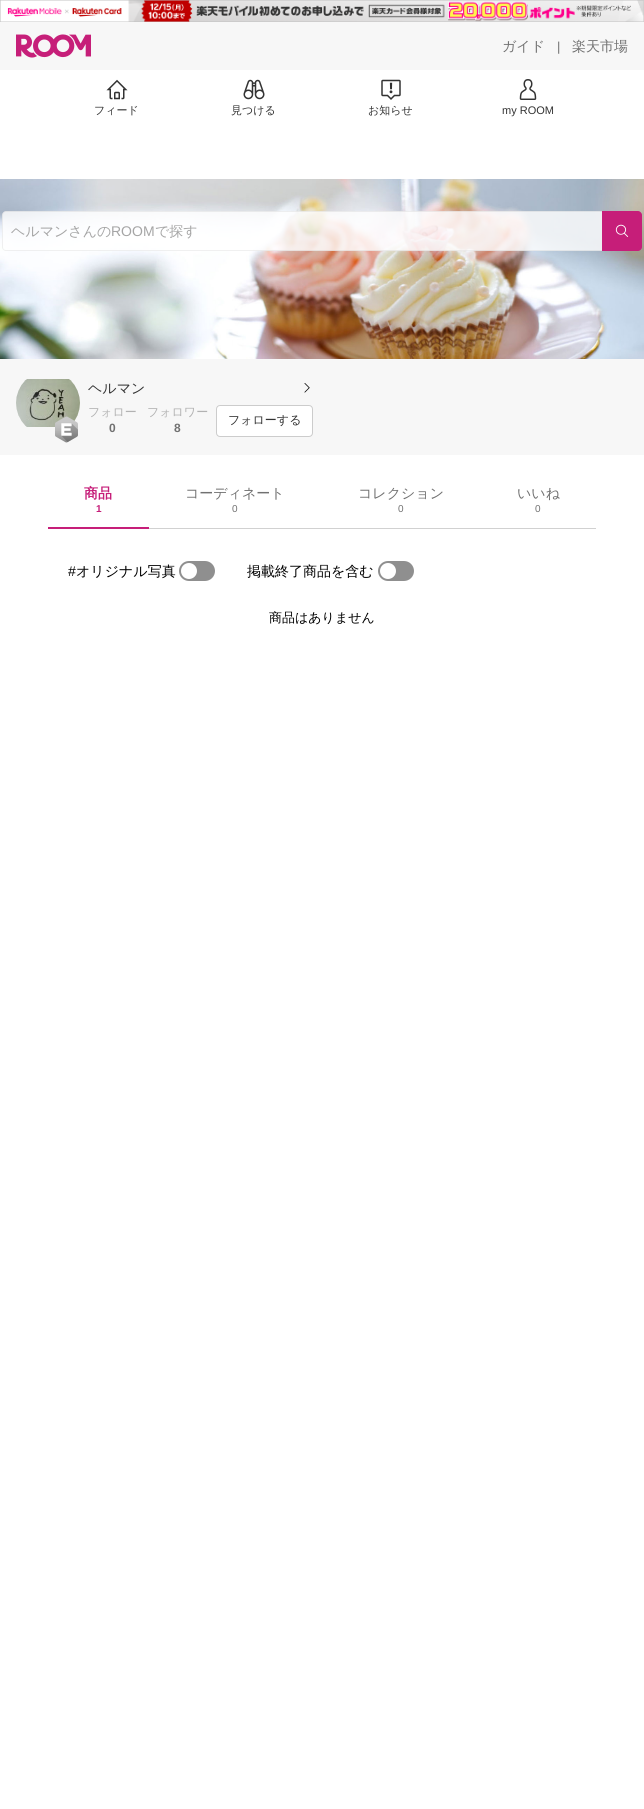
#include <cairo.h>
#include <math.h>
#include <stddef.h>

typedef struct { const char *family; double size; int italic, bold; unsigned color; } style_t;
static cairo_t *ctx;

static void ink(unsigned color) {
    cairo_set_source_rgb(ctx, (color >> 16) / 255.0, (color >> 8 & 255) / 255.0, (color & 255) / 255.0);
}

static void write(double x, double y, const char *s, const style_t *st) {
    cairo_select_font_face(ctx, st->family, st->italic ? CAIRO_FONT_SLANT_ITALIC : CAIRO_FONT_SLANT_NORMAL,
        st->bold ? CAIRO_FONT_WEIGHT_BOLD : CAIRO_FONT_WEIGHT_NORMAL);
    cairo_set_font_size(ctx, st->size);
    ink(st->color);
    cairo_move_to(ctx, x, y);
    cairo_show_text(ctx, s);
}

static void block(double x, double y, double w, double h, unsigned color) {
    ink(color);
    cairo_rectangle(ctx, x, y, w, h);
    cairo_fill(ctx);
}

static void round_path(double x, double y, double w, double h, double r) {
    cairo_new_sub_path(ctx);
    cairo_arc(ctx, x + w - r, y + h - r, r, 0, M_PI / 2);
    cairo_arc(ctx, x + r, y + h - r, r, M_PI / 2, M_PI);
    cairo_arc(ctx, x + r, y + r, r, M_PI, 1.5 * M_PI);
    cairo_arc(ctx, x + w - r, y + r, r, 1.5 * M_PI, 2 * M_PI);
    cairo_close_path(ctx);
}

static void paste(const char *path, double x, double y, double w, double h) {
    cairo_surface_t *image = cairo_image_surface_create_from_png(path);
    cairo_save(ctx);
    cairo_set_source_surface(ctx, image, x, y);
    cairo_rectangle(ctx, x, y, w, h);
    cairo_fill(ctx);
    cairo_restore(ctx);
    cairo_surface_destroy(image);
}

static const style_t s1 = {"WenQuanYi Zen Hei Medium", 14, 0, 0, 0x717171};
static const style_t s2 = {"Liberation Sans", 13, 0, 0, 0x717171};
static const style_t s3 = {"WenQuanYi Zen Hei Medium", 11, 0, 0, 0x333333};
static const style_t s4 = {"Liberation Sans", 11, 0, 0, 0x333333};
static const style_t s5 = {"WenQuanYi Zen Hei Medium", 14, 0, 0, 0xa5a5a5};
static const style_t s6 = {"Liberation Sans", 14, 0, 0, 0xa5a5a5};
static const style_t s7 = {"WenQuanYi Zen Hei Medium", 14, 0, 0, 0x333333};
static const style_t s8 = {"WenQuanYi Zen Hei Medium", 12, 0, 0, 0xb2b2b2};
static const style_t s9 = {"Liberation Sans", 12, 0, 1, 0x717171};
static const style_t s10 = {"WenQuanYi Zen Hei Medium", 12, 0, 0, 0x333333};
static const style_t s11 = {"WenQuanYi Zen Hei", 14, 0, 1, 0xc61e79};
static const style_t s12 = {"Liberation Sans", 10, 0, 1, 0xc61e79};
static const style_t s13 = {"Liberation Sans", 10, 0, 0, 0x717171};
static const style_t s14 = {"Liberation Sans", 14, 0, 0, 0x000000};
static const style_t s15 = {"WenQuanYi Zen Hei Medium", 14, 0, 0, 0x000000};
static const style_t s16 = {"WenQuanYi Zen Hei Medium", 13, 0, 0, 0x000000};

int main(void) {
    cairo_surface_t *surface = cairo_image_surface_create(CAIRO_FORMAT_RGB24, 644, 1809);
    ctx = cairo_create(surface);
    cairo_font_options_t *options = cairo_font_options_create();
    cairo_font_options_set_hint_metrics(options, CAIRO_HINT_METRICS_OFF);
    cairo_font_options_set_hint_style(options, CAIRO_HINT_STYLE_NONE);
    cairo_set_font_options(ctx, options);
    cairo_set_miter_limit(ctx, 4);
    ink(0xffffff);
    cairo_paint(ctx);
    paste("pic1.png", 0, 0, 644, 22);
    block(0, 22, 644, 48, 0xf7f7f7);
    paste("pic2.png", 16, 34, 75, 24);
    write(502, 51, "ガイド", &s1);
    write(557, 51, "|", &s2);
    write(572, 51, "楽天市場", &s1);
    paste("pic3.png", 106, 79, 22, 21);
    write(94, 114, "フィード", &s3);
    paste("pic4.png", 243, 79, 22, 21);
    write(231, 114, "見つける", &s3);
    paste("pic5.png", 381, 79, 20, 21);
    write(368, 114, "お知らせ", &s3);
    paste("pic6.png", 519, 79, 18, 21);
    write(502, 114, "my ROOM", &s4);
    paste("pic7.png", 0, 179, 644, 180);
    cairo_set_source_rgba(ctx, 1, 1, 1, 0.8);
    cairo_new_path(ctx);
    cairo_move_to(ctx, 6, 211);
    cairo_line_to(ctx, 602, 211);
    cairo_line_to(ctx, 602, 251);
    cairo_line_to(ctx, 6, 251);
    cairo_curve_to(ctx, 4, 251, 2, 249, 2, 247);
    cairo_line_to(ctx, 2, 215);
    cairo_curve_to(ctx, 2, 213, 4, 211, 6, 211);
    cairo_close_path(ctx);
    cairo_fill(ctx);
    cairo_set_source_rgba(ctx, 0, 0, 0, 0.06);
    cairo_set_fill_rule(ctx, CAIRO_FILL_RULE_EVEN_ODD);
    cairo_new_path(ctx);
    cairo_move_to(ctx, 6, 211);
    cairo_line_to(ctx, 602, 211);
    cairo_line_to(ctx, 602, 251);
    cairo_line_to(ctx, 6, 251);
    cairo_curve_to(ctx, 4, 251, 2, 249, 2, 247);
    cairo_line_to(ctx, 2, 215);
    cairo_curve_to(ctx, 2, 213, 4, 211, 6, 211);
    cairo_close_path(ctx);
    cairo_move_to(ctx, 6, 212);
    cairo_line_to(ctx, 602, 212);
    cairo_line_to(ctx, 602, 250);
    cairo_line_to(ctx, 6, 250);
    cairo_curve_to(ctx, 4, 250, 3, 249, 3, 247);
    cairo_line_to(ctx, 3, 215);
    cairo_curve_to(ctx, 3, 213, 4, 212, 6, 212);
    cairo_close_path(ctx);
    cairo_fill(ctx);
    write(11, 236, "ヘルマンさんの", &s5);
    write(111, 236, "ROOM", &s6);
    write(155, 236, "で探す", &s5);
    ink(0xc61e79);
    cairo_new_path(ctx);
    cairo_move_to(ctx, 602, 211);
    cairo_line_to(ctx, 638, 211);
    cairo_curve_to(ctx, 640, 211, 642, 213, 642, 215);
    cairo_line_to(ctx, 642, 247);
    cairo_curve_to(ctx, 642, 249, 640, 251, 638, 251);
    cairo_line_to(ctx, 602, 251);
    cairo_close_path(ctx);
    cairo_fill(ctx);
    paste("pic8.png", 615, 224, 14, 13);
    block(0, 359, 644, 96, 0xf7f7f7);
    paste("pic9.png", 16, 379, 64, 48);
    paste("pic10.png", 55, 416, 23, 27);
    write(88, 393, "ヘルマン", &s7);
    paste("pic11.png", 304, 383, 6, 10);
    write(88, 416, "フォロー", &s8);
    write(109, 432, "0", &s9);
    write(147, 416, "フォロワー", &s8);
    write(174, 432, "8", &s9);
    ink(0xffffff);
    round_path(216, 405, 97, 32, 4);
    cairo_fill(ctx);
    round_path(216.5, 405.5, 96, 31, 3.5);
    cairo_set_source_rgba(ctx, 0, 0, 0, 0.2);
    cairo_set_line_width(ctx, 1);
    cairo_stroke(ctx);
    write(228, 424, "フォローする", &s10);
    block(48, 527, 101, 2, 0xc61e79);
    write(84, 498, "商品", &s11);
    write(96, 512, "1", &s12);
    block(149, 528, 447, 1, 0xd1d1d1);
    write(185, 498, "コーディネート", &s1);
    write(232, 512, "0", &s13);
    write(358, 498, "コレクション", &s1);
    write(398, 512, "0", &s13);
    write(517, 498, "いいね", &s1);
    write(535, 512, "0", &s13);
    write(68, 576, "#", &s14);
    write(76, 576, "オリジナル写真", &s15);
    ink(0x8f8f8f);
    round_path(180, 562, 34, 18, 9);
    cairo_fill_preserve(ctx);
    cairo_set_line_width(ctx, 2);
    cairo_stroke(ctx);
    ink(0xffffff);
    cairo_arc(ctx, 189, 571, 8, 0, 2 * M_PI);
    cairo_fill(ctx);
    write(247, 576, "掲載終了商品を含む", &s15);
    ink(0x8f8f8f);
    round_path(379, 562, 34, 18, 9);
    cairo_fill_preserve(ctx);
    cairo_stroke(ctx);
    ink(0xffffff);
    cairo_arc(ctx, 388, 571, 8, 0, 2 * M_PI);
    cairo_fill(ctx);
    write(269, 622, "商品はありません", &s16);
    cairo_surface_write_to_png(surface, "screenshot.png");
    cairo_font_options_destroy(options);
    cairo_destroy(ctx);
    cairo_surface_destroy(surface);
    return 0;
}
